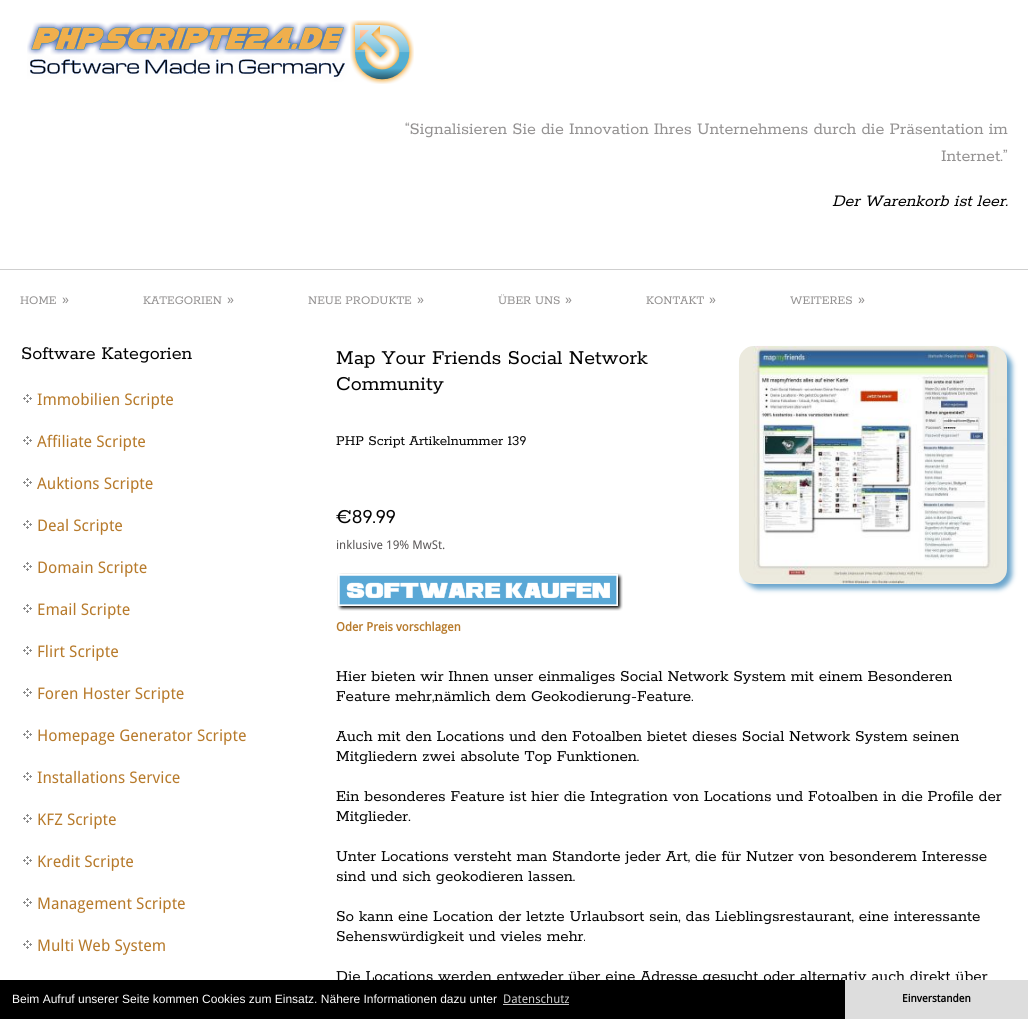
#include <cairo.h>
#include <math.h>
#include <stddef.h>

typedef struct { const char *family; double size; int italic, bold; unsigned color; } style_t;
static cairo_t *ctx;

static void ink(unsigned color) {
    cairo_set_source_rgb(ctx, (color >> 16) / 255.0, (color >> 8 & 255) / 255.0, (color & 255) / 255.0);
}

static void write(double x, double y, const char *s, const style_t *st) {
    cairo_select_font_face(ctx, st->family, st->italic ? CAIRO_FONT_SLANT_ITALIC : CAIRO_FONT_SLANT_NORMAL,
        st->bold ? CAIRO_FONT_WEIGHT_BOLD : CAIRO_FONT_WEIGHT_NORMAL);
    cairo_set_font_size(ctx, st->size);
    ink(st->color);
    cairo_move_to(ctx, x, y);
    cairo_show_text(ctx, s);
}

static void block(double x, double y, double w, double h, unsigned color) {
    ink(color);
    cairo_rectangle(ctx, x, y, w, h);
    cairo_fill(ctx);
}

static void round_path(double x, double y, double w, double h, double r) {
    cairo_new_sub_path(ctx);
    cairo_arc(ctx, x + w - r, y + h - r, r, 0, M_PI / 2);
    cairo_arc(ctx, x + r, y + h - r, r, M_PI / 2, M_PI);
    cairo_arc(ctx, x + r, y + r, r, M_PI, 1.5 * M_PI);
    cairo_arc(ctx, x + w - r, y + r, r, 1.5 * M_PI, 2 * M_PI);
    cairo_close_path(ctx);
}

static void blur_box(double x, double y, double w, double h, double r, double blur, double alpha) {
    cairo_push_group_with_content(ctx, CAIRO_CONTENT_ALPHA);
    cairo_set_operator(ctx, CAIRO_OPERATOR_SOURCE);
    for (int i = 15; i >= -15 && fmin(w, h) + blur * i / 3 > 0; i -= 2) {
        double e = blur * i / 6;
        cairo_set_source_rgba(ctx, 0, 0, 0, alpha * erfc((i - 1) / 8.5) / 2);
        round_path(x - e, y - e, w + 2 * e, h + 2 * e, fmax(0, fmin(r + e + blur * .6, fmin(w, h) / 2 + e)));
        cairo_fill(ctx);
    }
    cairo_pattern_t *soft = cairo_pop_group(ctx);
    cairo_mask(ctx, soft);
    cairo_pattern_destroy(soft);
}

static void paste(const char *path, double x, double y, double w, double h) {
    cairo_surface_t *image = cairo_image_surface_create_from_png(path);
    cairo_save(ctx);
    cairo_set_source_surface(ctx, image, x, y);
    cairo_rectangle(ctx, x, y, w, h);
    cairo_fill(ctx);
    cairo_restore(ctx);
    cairo_surface_destroy(image);
}

static const style_t s1 = {"Rokkitt SemiBold", 18, 0, 0, 0x939191};
static const style_t s2 = {"Rokkitt SemiBold", 18, 1, 0, 0x030303};
static const style_t s3 = {"Rokkitt SemiBold", 13, 0, 0, 0x939191};
static const style_t s4 = {"Rokkitt SemiBold", 20, 0, 0, 0x030303};
static const style_t s5 = {"Droid Sans", 16, 0, 0, 0xb77a2b};
static const style_t s6 = {"Rokkitt SemiBold", 22, 0, 0, 0x030303};
static const style_t s7 = {"Rokkitt SemiBold", 15, 0, 0, 0x030303};
static const style_t s8 = {"Droid Sans", 12, 0, 0, 0x585555};
static const style_t s9 = {"Droid Sans", 12, 0, 1, 0xb77a2b};
static const style_t s10 = {"Rokkitt SemiBold", 17, 0, 0, 0x030303};
static const style_t s11 = {"Liberation Sans", 12, 0, 0, 0xffffff};
static const style_t s12 = {"Droid Sans", 12, 0, 0, 0xcccccc};
static const style_t s13 = {"Droid Sans", 10.75, 0, 1, 0x030303};

int main(void) {
    cairo_surface_t *surface = cairo_image_surface_create(CAIRO_FORMAT_RGB24, 1028, 1019);
    ctx = cairo_create(surface);
    cairo_font_options_t *options = cairo_font_options_create();
    cairo_font_options_set_hint_metrics(options, CAIRO_HINT_METRICS_OFF);
    cairo_font_options_set_hint_style(options, CAIRO_HINT_STYLE_NONE);
    cairo_set_font_options(ctx, options);
    cairo_set_miter_limit(ctx, 4);
    ink(0xffffff);
    cairo_paint(ctx);
    paste("pic1.png", 27, 20, 387, 64);
    write(405, 134, "“Signalisieren Sie die Innovation Ihres Unternehmens durch die Präsentation im", &s1);
    write(941, 161, "Internet.”", &s1);
    write(832, 206, "Der Warenkorb ist leer.", &s2);
    block(0, 269, 1028, 1, 0xcfcfcf);
    write(20, 304, "HOME", &s3);
    write(62, 304, "»", &s1);
    write(143, 304, "KATEGORIEN", &s3);
    write(227, 304, "»", &s1);
    write(308, 304, "NEUE PRODUKTE", &s3);
    write(417, 304, "»", &s1);
    write(498, 304, "ÜBER UNS", &s3);
    write(565, 304, "»", &s1);
    write(646, 304, "KONTAKT", &s3);
    write(709, 304, "»", &s1);
    write(790, 304, "WEITERES", &s3);
    write(858, 304, "»", &s1);
    write(21, 359, "Software Kategorien", &s4);
    paste("pic2.png", 23, 394, 9, 9);
    write(37, 405, "Immobilien Scripte", &s5);
    paste("pic2.png", 23, 436, 9, 9);
    write(37, 447, "Affiliate Scripte", &s5);
    paste("pic2.png", 23, 478, 9, 9);
    write(37, 489, "Auktions Scripte", &s5);
    paste("pic2.png", 23, 520, 9, 9);
    write(37, 531, "Deal Scripte", &s5);
    paste("pic2.png", 23, 562, 9, 9);
    write(37, 573, "Domain Scripte", &s5);
    paste("pic2.png", 23, 604, 9, 9);
    write(37, 615, "Email Scripte", &s5);
    paste("pic2.png", 23, 646, 9, 9);
    write(37, 657, "Flirt Scripte", &s5);
    paste("pic2.png", 23, 688, 9, 9);
    write(37, 699, "Foren Hoster Scripte", &s5);
    paste("pic2.png", 23, 730, 9, 9);
    write(37, 741, "Homepage Generator Scripte", &s5);
    paste("pic2.png", 23, 772, 9, 9);
    write(37, 783, "Installations Service", &s5);
    paste("pic2.png", 23, 814, 9, 9);
    write(37, 825, "KFZ Scripte", &s5);
    paste("pic2.png", 23, 856, 9, 9);
    write(37, 867, "Kredit Scripte", &s5);
    paste("pic2.png", 23, 898, 9, 9);
    write(37, 909, "Management Scripte", &s5);
    paste("pic2.png", 23, 940, 9, 9);
    write(37, 951, "Multi Web System", &s5);
    write(336, 364, "Map Your Friends Social Network", &s6);
    write(336, 390, "Community", &s6);
    ink(0x6ca6cd);
    blur_box(744, 351, 268, 238, 15, 2.5, 1);
    paste("pic3.png", 739, 346, 268, 238);
    write(336, 445, "PHP Script Artikelnummer 139", &s7);
    write(336, 523, "€89.99", &s6);
    write(336, 549, "inklusive 19% MwSt.", &s8);
    paste("pic4.png", 337, 573, 286, 38);
    write(336, 631, "Oder Preis vorschlagen", &s9);
    write(336, 681, "Hier bieten wir Ihnen unser einmaliges Social Network System mit einem Besonderen", &s10);
    write(336, 701, "Feature mehr,nämlich dem Geokodierung-Feature.", &s10);
    write(336, 741, "Auch mit den Locations und den Fotoalben bietet dieses Social Network System seinen", &s10);
    write(336, 761, "Mitgliedern zwei absolute Top Funktionen.", &s10);
    write(336, 801, "Ein besonderes Feature ist hier die Integration von Locations und Fotoalben in die Profile der", &s10);
    write(336, 821, "Mitglieder.", &s10);
    write(336, 861, "Unter Locations versteht man Standorte jeder Art, die für Nutzer von besonderem Interesse", &s10);
    write(336, 881, "sind und sich geokodieren lassen.", &s10);
    write(336, 921, "So kann eine Location der letzte Urlaubsort sein, das Lieblingsrestaurant, eine interessante", &s10);
    write(336, 941, "Sehenswürdigkeit und vieles mehr.", &s10);
    write(336, 981, "Die Locations werden entweder über eine Adresse gesucht oder alternativ auch direkt über", &s10);
    block(0, 980, 845, 39, 0x000000);
    write(12, 1003, "Beim Aufruf unserer Seite kommen Cookies zum Einsatz. Nähere Informationen dazu unter", &s11);
    write(503, 1003, "Datenschutz", &s12);
    block(503, 1004, 66, 1, 0xcccccc);
    block(845, 980, 183, 39, 0xdddddd);
    write(902, 1002, "Einverstanden", &s13);
    cairo_surface_write_to_png(surface, "screenshot.png");
    cairo_font_options_destroy(options);
    cairo_destroy(ctx);
    cairo_surface_destroy(surface);
    return 0;
}
